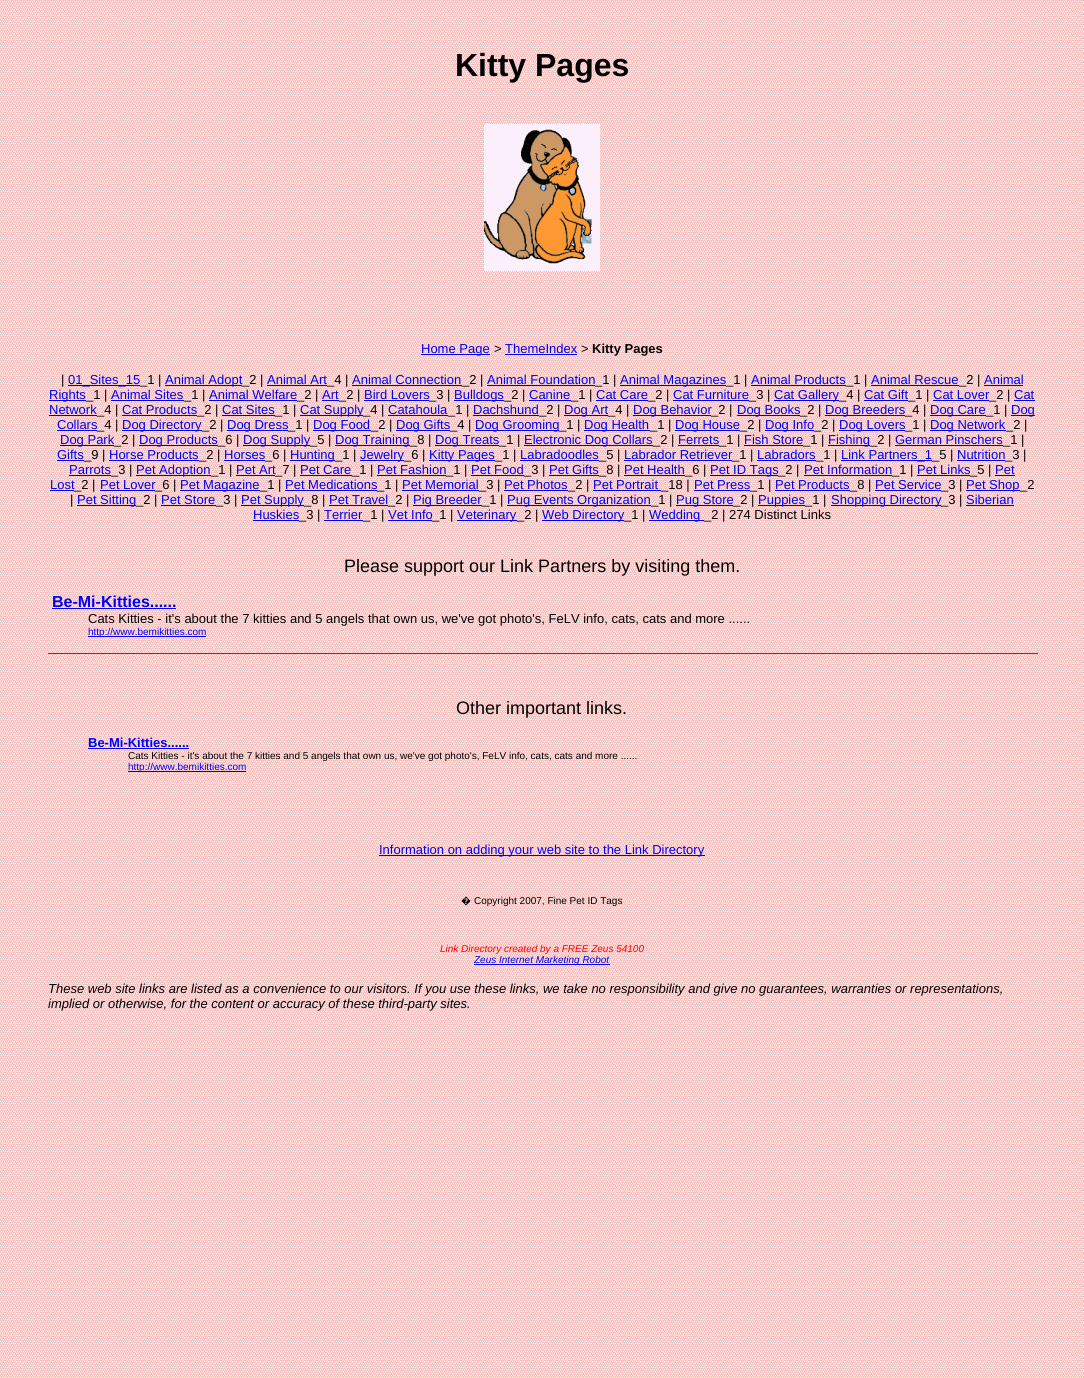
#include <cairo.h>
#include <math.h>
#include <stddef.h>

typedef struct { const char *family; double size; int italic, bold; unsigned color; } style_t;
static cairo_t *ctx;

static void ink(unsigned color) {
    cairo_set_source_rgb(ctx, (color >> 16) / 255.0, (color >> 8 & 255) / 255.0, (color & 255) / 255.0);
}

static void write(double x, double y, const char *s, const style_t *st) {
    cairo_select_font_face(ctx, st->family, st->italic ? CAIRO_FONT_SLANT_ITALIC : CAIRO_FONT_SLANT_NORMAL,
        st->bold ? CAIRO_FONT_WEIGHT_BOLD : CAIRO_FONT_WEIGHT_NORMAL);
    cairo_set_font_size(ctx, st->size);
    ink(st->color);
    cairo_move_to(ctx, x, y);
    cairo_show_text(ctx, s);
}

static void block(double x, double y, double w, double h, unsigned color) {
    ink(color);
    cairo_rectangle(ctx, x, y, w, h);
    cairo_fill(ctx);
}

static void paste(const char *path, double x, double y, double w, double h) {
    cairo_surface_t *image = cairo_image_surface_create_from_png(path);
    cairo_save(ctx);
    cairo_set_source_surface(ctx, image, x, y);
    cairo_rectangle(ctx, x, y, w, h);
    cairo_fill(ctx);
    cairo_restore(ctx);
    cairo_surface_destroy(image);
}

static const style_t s1 = {"Liberation Sans", 32, 0, 1, 0x000000};
static const style_t s2 = {"Liberation Sans", 13, 0, 0, 0x0000ee};
static const style_t s3 = {"Liberation Sans", 13, 0, 0, 0x000000};
static const style_t s4 = {"Liberation Sans", 13, 0, 1, 0x000000};
static const style_t s5 = {"Liberation Sans", 18, 0, 0, 0x000000};
static const style_t s6 = {"Liberation Sans", 16, 0, 1, 0x0000ff};
static const style_t s7 = {"Liberation Sans", 10, 0, 0, 0x0000ff};
static const style_t s8 = {"Liberation Sans", 13, 0, 1, 0x0000ff};
static const style_t s9 = {"Liberation Sans", 10, 0, 0, 0x000000};
static const style_t s10 = {"Noto Sans", 10, 0, 0, 0x000000};
static const style_t s11 = {"Liberation Sans", 10, 1, 0, 0xff0000};
static const style_t s12 = {"Liberation Sans", 10, 1, 0, 0x0000ee};
static const style_t s13 = {"Liberation Sans", 13, 1, 0, 0x000000};

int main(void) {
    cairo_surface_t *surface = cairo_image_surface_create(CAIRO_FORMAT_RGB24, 1084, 1378);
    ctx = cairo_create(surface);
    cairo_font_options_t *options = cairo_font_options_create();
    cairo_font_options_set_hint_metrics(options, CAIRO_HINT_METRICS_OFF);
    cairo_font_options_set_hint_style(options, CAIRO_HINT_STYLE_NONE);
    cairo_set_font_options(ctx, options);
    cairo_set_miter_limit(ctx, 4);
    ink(0xffffff);
    cairo_paint(ctx);
    paste("pic1.png", 0, 0, 1084, 1378);
    write(455, 76, "Kitty Pages", &s1);
    paste("pic2.png", 484, 124, 116, 147);
    block(421, 354, 69, 1, 0x0000ee);
    write(421, 353, "Home Page", &s2);
    write(494, 353, ">", &s3);
    write(505, 353, "ThemeIndex", &s2);
    block(505, 354, 72, 1, 0x0000ee);
    write(581, 353, ">", &s3);
    write(592, 353, "Kitty Pages", &s4);
    write(61, 384, "|", &s3);
    block(68, 385, 72, 1, 0x0000ee);
    write(68, 384, "01_Sites_15", &s2);
    write(140, 384, "_1 |", &s3);
    block(165, 385, 77, 1, 0x0000ee);
    write(165, 384, "Animal Adopt", &s2);
    write(242, 384, "_2 |", &s3);
    write(267, 384, "Animal Art", &s2);
    write(327, 384, "_4 |", &s3);
    block(267, 385, 60, 1, 0x0000ee);
    write(352, 384, "Animal Connection", &s2);
    block(352, 385, 110, 1, 0x0000ee);
    write(462, 384, "_2 |", &s3);
    write(487, 384, "Animal Foundation", &s2);
    block(487, 385, 108, 1, 0x0000ee);
    write(595, 384, "_1 |", &s3);
    block(620, 385, 106, 1, 0x0000ee);
    write(620, 384, "Animal Magazines", &s2);
    write(726, 384, "_1 |", &s3);
    write(751, 384, "Animal Products", &s2);
    block(751, 385, 95, 1, 0x0000ee);
    write(846, 384, "_1 |", &s3);
    write(871, 384, "Animal Rescue", &s2);
    block(871, 385, 88, 1, 0x0000ee);
    write(959, 384, "_2 |", &s3);
    write(984, 384, "Animal", &s2);
    block(984, 385, 39, 1, 0x0000ee);
    block(49, 400, 37, 1, 0x0000ee);
    write(49, 399, "Rights", &s2);
    write(86, 399, "_1 |", &s3);
    write(111, 399, "Animal Sites", &s2);
    block(111, 400, 73, 1, 0x0000ee);
    write(184, 399, "_1 |", &s3);
    write(209, 399, "Animal Welfare", &s2);
    block(209, 400, 88, 1, 0x0000ee);
    write(297, 399, "_2 |", &s3);
    write(322, 399, "Art", &s2);
    block(322, 400, 17, 1, 0x0000ee);
    write(339, 399, "_2 |", &s3);
    write(364, 399, "Bird Lovers", &s2);
    write(429, 399, "_3 |", &s3);
    block(364, 400, 65, 1, 0x0000ee);
    block(454, 400, 50, 1, 0x0000ee);
    write(454, 399, "Bulldogs", &s2);
    write(504, 399, "_2 |", &s3);
    write(529, 399, "Canine", &s2);
    block(529, 400, 42, 1, 0x0000ee);
    write(571, 399, "_1 |", &s3);
    write(596, 399, "Cat Care", &s2);
    block(596, 400, 52, 1, 0x0000ee);
    write(648, 399, "_2 |", &s3);
    write(673, 399, "Cat Furniture", &s2);
    block(673, 400, 76, 1, 0x0000ee);
    write(749, 399, "_3 |", &s3);
    block(774, 400, 65, 1, 0x0000ee);
    write(774, 399, "Cat Gallery", &s2);
    write(839, 399, "_4 |", &s3);
    write(864, 399, "Cat Gift", &s2);
    block(864, 400, 44, 1, 0x0000ee);
    write(908, 399, "_1 |", &s3);
    write(933, 399, "Cat Lover", &s2);
    write(989, 399, "_2 |", &s3);
    block(933, 400, 56, 1, 0x0000ee);
    write(1014, 399, "Cat", &s2);
    block(1014, 400, 21, 1, 0x0000ee);
    write(49, 414, "Network", &s2);
    block(49, 415, 48, 1, 0x0000ee);
    write(97, 414, "_4 |", &s3);
    write(122, 414, "Cat Products", &s2);
    block(122, 415, 75, 1, 0x0000ee);
    write(197, 414, "_2 |", &s3);
    write(222, 414, "Cat Sites", &s2);
    block(222, 415, 53, 1, 0x0000ee);
    write(275, 414, "_1 |", &s3);
    block(300, 415, 63, 1, 0x0000ee);
    write(300, 414, "Cat Supply", &s2);
    write(363, 414, "_4 |", &s3);
    write(388, 414, "Catahoula", &s2);
    block(388, 415, 60, 1, 0x0000ee);
    write(448, 414, "_1 |", &s3);
    write(473, 414, "Dachshund", &s2);
    block(473, 415, 66, 1, 0x0000ee);
    write(539, 414, "_2 |", &s3);
    block(564, 415, 44, 1, 0x0000ee);
    write(564, 414, "Dog Art", &s2);
    write(608, 414, "_4 |", &s3);
    block(633, 415, 78, 1, 0x0000ee);
    write(633, 414, "Dog Behavior", &s2);
    write(711, 414, "_2 |", &s3);
    block(737, 415, 63, 1, 0x0000ee);
    write(737, 414, "Dog Books", &s2);
    write(800, 414, "_2 |", &s3);
    block(825, 415, 80, 1, 0x0000ee);
    write(825, 414, "Dog Breeders", &s2);
    write(905, 414, "_4 |", &s3);
    block(930, 415, 56, 1, 0x0000ee);
    write(930, 414, "Dog Care", &s2);
    write(986, 414, "_1 |", &s3);
    block(1011, 415, 24, 1, 0x0000ee);
    write(1011, 414, "Dog", &s2);
    write(57, 429, "Collars", &s2);
    write(97, 429, "_4 |", &s3);
    block(57, 430, 40, 1, 0x0000ee);
    block(122, 430, 80, 1, 0x0000ee);
    write(122, 429, "Dog Directory", &s2);
    write(202, 429, "_2 |", &s3);
    block(227, 430, 61, 1, 0x0000ee);
    write(227, 429, "Dog Dress", &s2);
    write(288, 429, "_1 |", &s3);
    block(313, 430, 58, 1, 0x0000ee);
    write(313, 429, "Dog Food", &s2);
    write(371, 429, "_2 |", &s3);
    block(396, 430, 54, 1, 0x0000ee);
    write(396, 429, "Dog Gifts", &s2);
    write(450, 429, "_4 |", &s3);
    block(475, 430, 84, 1, 0x0000ee);
    write(475, 429, "Dog Grooming", &s2);
    write(559, 429, "_1 |", &s3);
    block(584, 430, 66, 1, 0x0000ee);
    write(584, 429, "Dog Health", &s2);
    write(650, 429, "_1 |", &s3);
    block(675, 430, 65, 1, 0x0000ee);
    write(675, 429, "Dog House", &s2);
    write(740, 429, "_2 |", &s3);
    block(765, 430, 49, 1, 0x0000ee);
    write(765, 429, "Dog Info", &s2);
    write(814, 429, "_2 |", &s3);
    block(839, 430, 66, 1, 0x0000ee);
    write(839, 429, "Dog Lovers", &s2);
    write(905, 429, "_1 |", &s3);
    block(930, 430, 76, 1, 0x0000ee);
    write(930, 429, "Dog Network", &s2);
    write(1006, 429, "_2 |", &s3);
    block(60, 445, 54, 1, 0x0000ee);
    write(60, 444, "Dog Park", &s2);
    write(114, 444, "_2 |", &s3);
    block(139, 445, 79, 1, 0x0000ee);
    write(139, 444, "Dog Products", &s2);
    write(218, 444, "_6 |", &s3);
    block(243, 445, 67, 1, 0x0000ee);
    write(243, 444, "Dog Supply", &s2);
    write(310, 444, "_5 |", &s3);
    block(335, 445, 75, 1, 0x0000ee);
    write(335, 444, "Dog Training", &s2);
    write(410, 444, "_8 |", &s3);
    block(435, 445, 64, 1, 0x0000ee);
    write(435, 444, "Dog Treats", &s2);
    write(499, 444, "_1 |", &s3);
    block(524, 445, 129, 1, 0x0000ee);
    write(524, 444, "Electronic Dog Collars", &s2);
    write(653, 444, "_2 |", &s3);
    write(678, 444, "Ferrets", &s2);
    block(678, 445, 41, 1, 0x0000ee);
    write(719, 444, "_1 |", &s3);
    write(744, 444, "Fish Store", &s2);
    block(744, 445, 59, 1, 0x0000ee);
    write(803, 444, "_1 |", &s3);
    block(828, 445, 42, 1, 0x0000ee);
    write(828, 444, "Fishing", &s2);
    write(870, 444, "_2 |", &s3);
    write(895, 444, "German Pinschers", &s2);
    block(895, 445, 108, 1, 0x0000ee);
    write(1003, 444, "_1 |", &s3);
    write(57, 459, "Gifts", &s2);
    block(57, 460, 27, 1, 0x0000ee);
    write(84, 459, "_9 |", &s3);
    write(109, 459, "Horse Products", &s2);
    block(109, 460, 90, 1, 0x0000ee);
    write(199, 459, "_2 |", &s3);
    write(224, 459, "Horses", &s2);
    block(224, 460, 41, 1, 0x0000ee);
    write(265, 459, "_6 |", &s3);
    block(290, 460, 45, 1, 0x0000ee);
    write(290, 459, "Hunting", &s2);
    write(335, 459, "_1 |", &s3);
    block(360, 460, 44, 1, 0x0000ee);
    write(360, 459, "Jewelry", &s2);
    write(404, 459, "_6 |", &s3);
    block(429, 460, 66, 1, 0x0000ee);
    write(429, 459, "Kitty Pages", &s2);
    write(495, 459, "_1 |", &s3);
    write(520, 459, "Labradoodles", &s2);
    block(520, 460, 79, 1, 0x0000ee);
    write(599, 459, "_5 |", &s3);
    write(624, 459, "Labrador Retriever", &s2);
    block(624, 460, 108, 1, 0x0000ee);
    write(732, 459, "_1 |", &s3);
    write(757, 459, "Labradors", &s2);
    block(757, 460, 59, 1, 0x0000ee);
    write(816, 459, "_1 |", &s3);
    block(841, 460, 91, 1, 0x0000ee);
    write(841, 459, "Link Partners_1", &s2);
    write(932, 459, "_5 |", &s3);
    write(957, 459, "Nutrition", &s2);
    write(1005, 459, "_3 |", &s3);
    block(957, 460, 48, 1, 0x0000ee);
    write(69, 474, "Parrots", &s2);
    block(69, 475, 42, 1, 0x0000ee);
    write(111, 474, "_3 |", &s3);
    block(136, 475, 75, 1, 0x0000ee);
    write(136, 474, "Pet Adoption", &s2);
    write(211, 474, "_1 |", &s3);
    write(236, 474, "Pet Art", &s2);
    write(275, 474, "_7 |", &s3);
    block(236, 475, 39, 1, 0x0000ee);
    write(300, 474, "Pet Care", &s2);
    block(300, 475, 52, 1, 0x0000ee);
    write(352, 474, "_1 |", &s3);
    write(377, 474, "Pet Fashion", &s2);
    write(446, 474, "_1 |", &s3);
    block(377, 475, 69, 1, 0x0000ee);
    write(471, 474, "Pet Food", &s2);
    block(471, 475, 53, 1, 0x0000ee);
    write(524, 474, "_3 |", &s3);
    write(549, 474, "Pet Gifts", &s2);
    block(549, 475, 50, 1, 0x0000ee);
    write(599, 474, "_8 |", &s3);
    write(624, 474, "Pet Health", &s2);
    block(624, 475, 61, 1, 0x0000ee);
    write(685, 474, "_6 |", &s3);
    block(710, 475, 68, 1, 0x0000ee);
    write(710, 474, "Pet ID Tags", &s2);
    write(778, 474, "_2 |", &s3);
    write(804, 474, "Pet Information", &s2);
    block(804, 475, 88, 1, 0x0000ee);
    write(892, 474, "_1 |", &s3);
    write(917, 474, "Pet Links", &s2);
    write(970, 474, "_5 |", &s3);
    block(917, 475, 53, 1, 0x0000ee);
    write(995, 474, "Pet", &s2);
    block(995, 475, 20, 1, 0x0000ee);
    write(50, 489, "Lost", &s2);
    write(74, 489, "_2 |", &s3);
    block(50, 490, 24, 1, 0x0000ee);
    write(100, 489, "Pet Lover", &s2);
    write(155, 489, "_6 |", &s3);
    block(100, 490, 55, 1, 0x0000ee);
    block(180, 490, 80, 1, 0x0000ee);
    write(180, 489, "Pet Magazine", &s2);
    write(260, 489, "_1 |", &s3);
    write(285, 489, "Pet Medications", &s2);
    write(377, 489, "_1 |", &s3);
    block(285, 490, 92, 1, 0x0000ee);
    write(402, 489, "Pet Memorial", &s2);
    block(402, 490, 77, 1, 0x0000ee);
    write(479, 489, "_3 |", &s3);
    write(504, 489, "Pet Photos", &s2);
    block(504, 490, 64, 1, 0x0000ee);
    write(568, 489, "_2 |", &s3);
    write(593, 489, "Pet Portrait", &s2);
    write(661, 489, "_18 |", &s3);
    block(593, 490, 68, 1, 0x0000ee);
    write(694, 489, "Pet Press", &s2);
    block(694, 490, 56, 1, 0x0000ee);
    write(750, 489, "_1 |", &s3);
    write(775, 489, "Pet Products", &s2);
    block(775, 490, 75, 1, 0x0000ee);
    write(850, 489, "_8 |", &s3);
    write(875, 489, "Pet Service", &s2);
    block(875, 490, 66, 1, 0x0000ee);
    write(941, 489, "_3 |", &s3);
    block(966, 490, 54, 1, 0x0000ee);
    write(966, 489, "Pet Shop", &s2);
    write(1020, 489, "_2", &s3);
    write(70, 504, "|", &s3);
    block(77, 505, 59, 1, 0x0000ee);
    write(77, 504, "Pet Sitting", &s2);
    write(136, 504, "_2 |", &s3);
    write(161, 504, "Pet Store", &s2);
    block(161, 505, 55, 1, 0x0000ee);
    write(216, 504, "_3 |", &s3);
    block(241, 505, 63, 1, 0x0000ee);
    write(241, 504, "Pet Supply", &s2);
    write(304, 504, "_8 |", &s3);
    write(329, 504, "Pet Travel", &s2);
    block(329, 505, 59, 1, 0x0000ee);
    write(388, 504, "_2 |", &s3);
    block(413, 505, 69, 1, 0x0000ee);
    write(413, 504, "Pig Breeder", &s2);
    write(482, 504, "_1 |", &s3);
    block(507, 505, 144, 1, 0x0000ee);
    write(507, 504, "Pug Events Organization", &s2);
    write(651, 504, "_1 |", &s3);
    block(676, 505, 57, 1, 0x0000ee);
    write(676, 504, "Pug Store", &s2);
    write(733, 504, "_2 |", &s3);
    block(758, 505, 47, 1, 0x0000ee);
    write(758, 504, "Puppies", &s2);
    write(805, 504, "_1 |", &s3);
    block(831, 505, 110, 1, 0x0000ee);
    write(831, 504, "Shopping Directory", &s2);
    write(941, 504, "_3 |", &s3);
    write(966, 504, "Siberian", &s2);
    block(966, 505, 48, 1, 0x0000ee);
    write(253, 519, "Huskies", &s2);
    block(253, 520, 46, 1, 0x0000ee);
    write(299, 519, "_3 |", &s3);
    write(324, 519, "Terrier", &s2);
    block(324, 520, 39, 1, 0x0000ee);
    write(363, 519, "_1 |", &s3);
    write(388, 519, "Vet Info", &s2);
    write(432, 519, "_1 |", &s3);
    block(388, 520, 44, 1, 0x0000ee);
    block(457, 520, 60, 1, 0x0000ee);
    write(457, 519, "Veterinary", &s2);
    write(517, 519, "_2 |", &s3);
    block(542, 520, 82, 1, 0x0000ee);
    write(542, 519, "Web Directory", &s2);
    write(624, 519, "_1 |", &s3);
    block(649, 520, 55, 1, 0x0000ee);
    write(649, 519, "Wedding", &s2);
    write(704, 519, "_2 | 274 Distinct Links", &s3);
    write(344, 572, "Please support our Link Partners by visiting them.", &s5);
    write(52, 607, "Be-Mi-Kitties......", &s6);
    block(52, 608, 124, 1, 0x0000ee);
    write(88, 623, "Cats Kitties - it's about the 7 kitties and 5 angels that own us, we've got photo's, FeLV info, cats, cats and more ......", &s3);
    block(88, 636, 118, 1, 0x0000ee);
    write(88, 635, "http://www.bemikitties.com", &s7);
    block(48, 653, 990, 1, 0xff0000);
    write(456, 714, "Other important links.", &s5);
    write(88, 747, "Be-Mi-Kitties......", &s8);
    block(88, 748, 101, 1, 0x0000ee);
    write(128, 759, "Cats Kitties - it's about the 7 kitties and 5 angels that own us, we've got photo's, FeLV info, cats, cats and more ......", &s9);
    block(128, 771, 118, 1, 0x0000ee);
    write(128, 770, "http://www.bemikitties.com", &s7);
    block(379, 855, 326, 1, 0x0000ee);
    write(379, 854, "Information on adding your web site to the Link Directory", &s2);
    write(461, 904, "�", &s10);
    write(474, 904, "Copyright 2007, Fine Pet ID Tags", &s9);
    write(440, 952, "Link Directory created by a FREE Zeus 54100", &s11);
    block(474, 964, 136, 1, 0x0000ee);
    write(474, 963, "Zeus Internet Marketing Robot", &s12);
    write(48, 993, "These web site links are listed as a convenience to our visitors. If you use these links, we take no responsibility and give no guarantees, warranties or representations,", &s13);
    write(48, 1008, "implied or otherwise, for the content or accuracy of these third-party sites.", &s13);
    cairo_surface_write_to_png(surface, "screenshot.png");
    cairo_font_options_destroy(options);
    cairo_destroy(ctx);
    cairo_surface_destroy(surface);
    return 0;
}
